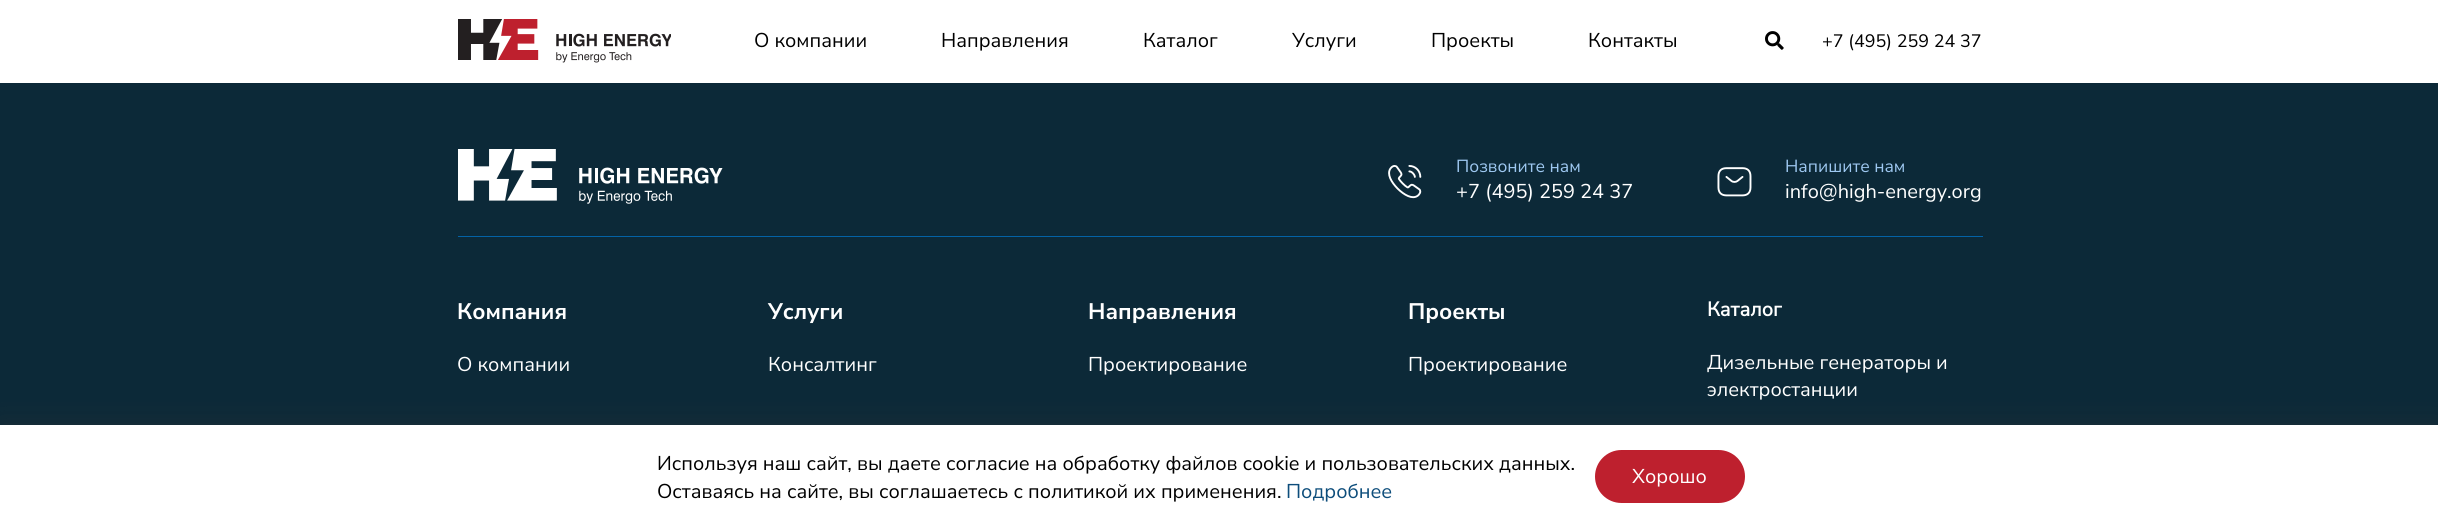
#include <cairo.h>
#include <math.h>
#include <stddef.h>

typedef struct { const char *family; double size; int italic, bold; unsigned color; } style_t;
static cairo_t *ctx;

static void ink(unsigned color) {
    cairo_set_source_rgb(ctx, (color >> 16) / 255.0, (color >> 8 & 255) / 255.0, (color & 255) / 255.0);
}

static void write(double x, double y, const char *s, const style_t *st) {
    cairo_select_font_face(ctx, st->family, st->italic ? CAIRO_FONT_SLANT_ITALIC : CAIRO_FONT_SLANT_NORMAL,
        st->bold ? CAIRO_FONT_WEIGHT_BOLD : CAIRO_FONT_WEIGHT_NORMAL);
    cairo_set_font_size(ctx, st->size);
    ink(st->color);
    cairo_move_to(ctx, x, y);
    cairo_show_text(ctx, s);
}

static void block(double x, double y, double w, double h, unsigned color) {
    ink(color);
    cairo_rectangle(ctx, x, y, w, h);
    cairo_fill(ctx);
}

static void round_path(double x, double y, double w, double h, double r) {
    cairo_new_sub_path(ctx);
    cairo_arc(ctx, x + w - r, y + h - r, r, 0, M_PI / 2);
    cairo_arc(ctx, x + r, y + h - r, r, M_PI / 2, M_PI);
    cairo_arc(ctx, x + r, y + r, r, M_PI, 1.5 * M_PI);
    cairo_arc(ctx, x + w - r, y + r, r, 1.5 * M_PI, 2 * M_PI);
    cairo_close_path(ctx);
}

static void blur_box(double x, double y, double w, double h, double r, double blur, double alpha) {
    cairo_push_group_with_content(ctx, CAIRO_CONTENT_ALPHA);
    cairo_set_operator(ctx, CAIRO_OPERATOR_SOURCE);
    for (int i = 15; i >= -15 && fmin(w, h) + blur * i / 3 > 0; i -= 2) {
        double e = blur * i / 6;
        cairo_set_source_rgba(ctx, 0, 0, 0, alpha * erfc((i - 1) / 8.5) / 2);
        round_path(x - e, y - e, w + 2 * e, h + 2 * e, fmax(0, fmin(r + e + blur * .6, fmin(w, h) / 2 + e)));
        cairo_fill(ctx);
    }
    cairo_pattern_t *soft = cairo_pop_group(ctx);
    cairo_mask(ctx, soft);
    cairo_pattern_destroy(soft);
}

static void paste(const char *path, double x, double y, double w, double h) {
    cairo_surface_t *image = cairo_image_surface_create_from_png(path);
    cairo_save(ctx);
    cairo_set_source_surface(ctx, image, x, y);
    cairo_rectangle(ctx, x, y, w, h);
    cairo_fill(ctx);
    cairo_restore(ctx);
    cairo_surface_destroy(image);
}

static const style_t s1 = {"Nunito Sans", 20, 0, 0, 0x000000};
static const style_t s2 = {"Nunito Sans", 18, 0, 0, 0x000000};
static const style_t s3 = {"Nunito Sans", 17.5, 0, 0, 0x9ec8f1};
static const style_t s4 = {"Nunito Sans", 20, 0, 0, 0xffffff};
static const style_t s5 = {"Nunito Sans", 22.5, 0, 1, 0xffffff};
static const style_t s6 = {"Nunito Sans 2", 20, 0, 1, 0xffffff};
static const style_t s7 = {"Nunito Sans", 20, 0, 0, 0x0d4d7b};

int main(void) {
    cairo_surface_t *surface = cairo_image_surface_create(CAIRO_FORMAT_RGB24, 2438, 529);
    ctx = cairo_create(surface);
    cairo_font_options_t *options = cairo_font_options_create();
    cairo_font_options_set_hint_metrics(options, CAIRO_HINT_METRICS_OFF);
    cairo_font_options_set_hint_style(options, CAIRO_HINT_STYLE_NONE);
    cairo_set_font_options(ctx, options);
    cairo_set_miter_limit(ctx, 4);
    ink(0x0c2938);
    cairo_paint(ctx);
    block(0, 0, 2438, 83, 0xffffff);
    paste("pic1.png", 458, 19, 213, 44);
    write(754, 47, "О компании", &s1);
    write(941, 47, "Направления", &s1);
    write(1143, 47, "Каталог", &s1);
    write(1292, 47, "Услуги", &s1);
    write(1431, 47, "Проекты", &s1);
    write(1588, 47, "Контакты", &s1);
    paste("pic2.png", 1765, 31, 19, 19);
    write(1822, 47, "+7 (495) 259 24 37", &s2);
    block(458, 236, 1525, 1, 0x0362a6);
    paste("pic3.png", 458, 149, 265, 55);
    paste("pic4.png", 1388, 165, 34, 34);
    write(1456, 172, "Позвоните нам", &s3);
    write(1456, 198, "+7 (495) 259 24 37", &s4);
    paste("pic5.png", 1717, 167, 35, 30);
    write(1785, 172, "Напишите нам", &s3);
    write(1785, 198, "info@high-energy.org", &s4);
    write(457, 319, "Компания", &s5);
    write(457, 371, "О компании", &s4);
    write(768, 319, "Услуги", &s5);
    write(768, 371, "Консалтинг", &s4);
    write(1088, 319, "Направления", &s5);
    write(1088, 371, "Проектирование", &s4);
    write(1408, 319, "Проекты", &s5);
    write(1408, 371, "Проектирование", &s4);
    write(1707, 316, "Каталог", &s6);
    write(1707, 369, "Дизельные генераторы и", &s4);
    write(1707, 396, "электростанции", &s4);
    ink(0x323232);
    blur_box(0, 425, 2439, 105, 0, 12.5, 0.41);
    block(0, 425, 2438, 104, 0xffffff);
    write(657, 470, "Используя наш сайт, вы даете согласие на обработку файлов cookie и пользовательских данных.", &s1);
    write(657, 498, "Оставаясь на сайте, вы соглашаетесь с политикой их применения.", &s1);
    write(1286, 498, "Подробнее", &s7);
    ink(0xbe202e);
    round_path(1595, 450, 150, 53, 26.5);
    cairo_fill(ctx);
    write(1632, 483, "Хорошо", &s4);
    cairo_surface_write_to_png(surface, "screenshot.png");
    cairo_font_options_destroy(options);
    cairo_destroy(ctx);
    cairo_surface_destroy(surface);
    return 0;
}
